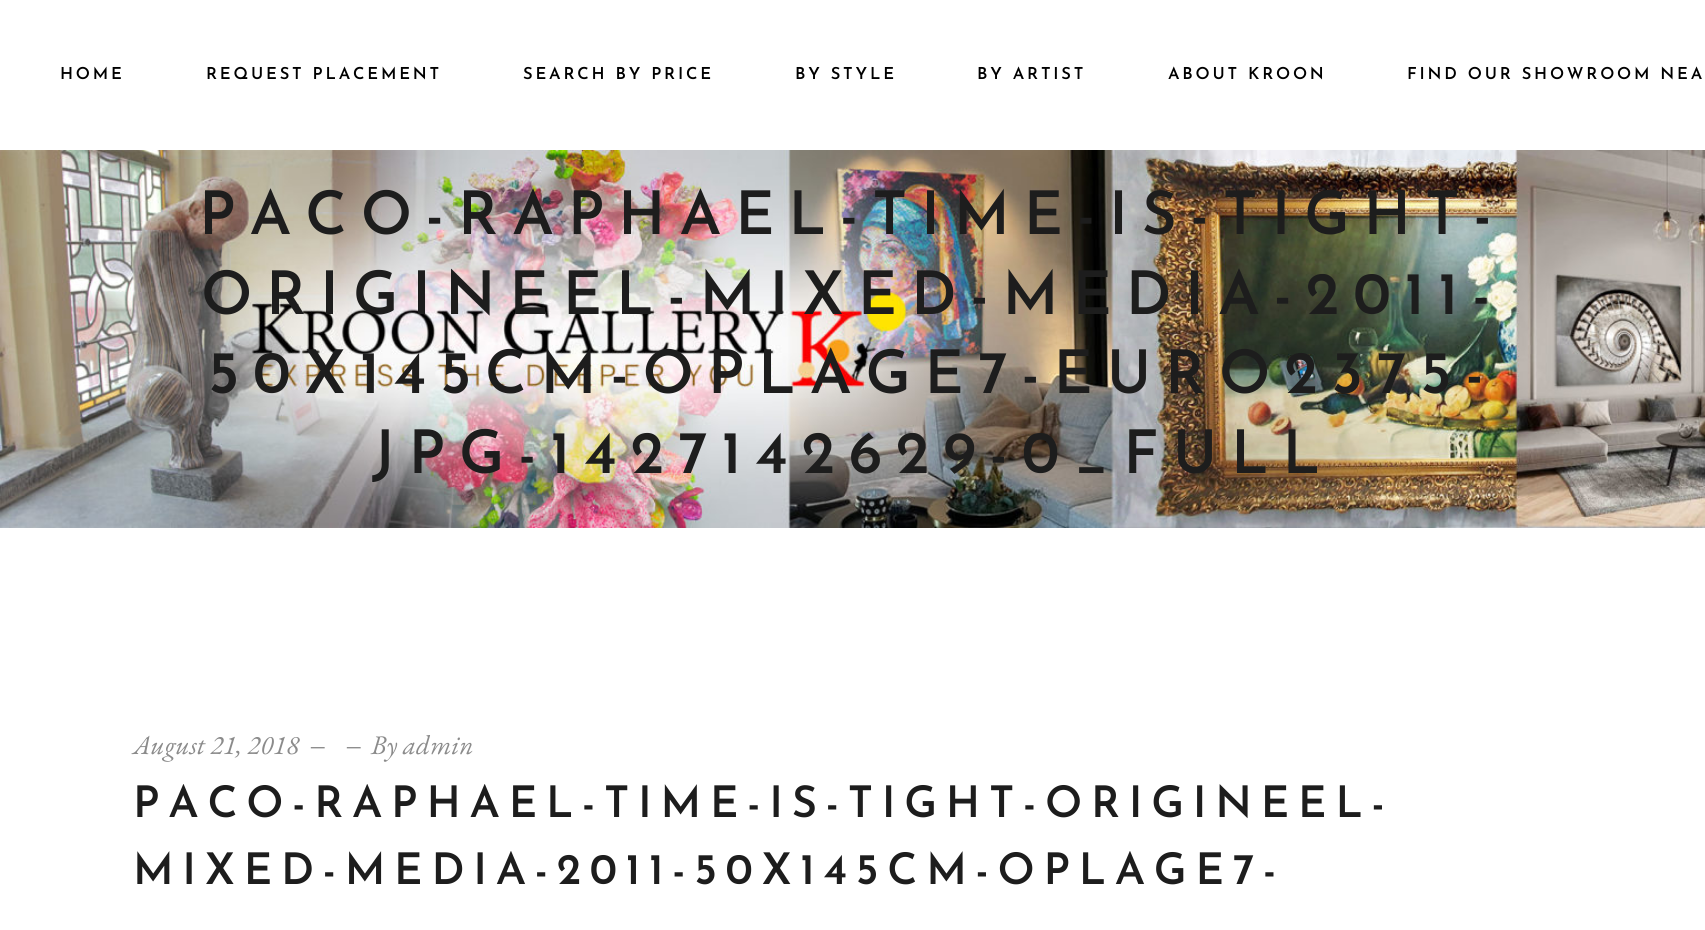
#include <cairo.h>
#include <math.h>
#include <stddef.h>

typedef struct { const char *family; double size; int italic, bold; unsigned color; } style_t;
static cairo_t *ctx;

static void ink(unsigned color) {
    cairo_set_source_rgb(ctx, (color >> 16) / 255.0, (color >> 8 & 255) / 255.0, (color & 255) / 255.0);
}

static void write(double x, double y, const char *s, const style_t *st) {
    cairo_select_font_face(ctx, st->family, st->italic ? CAIRO_FONT_SLANT_ITALIC : CAIRO_FONT_SLANT_NORMAL,
        st->bold ? CAIRO_FONT_WEIGHT_BOLD : CAIRO_FONT_WEIGHT_NORMAL);
    cairo_set_font_size(ctx, st->size);
    ink(st->color);
    cairo_move_to(ctx, x, y);
    cairo_show_text(ctx, s);
}

static void write_spaced(double x, double y, const char *s, double letter, double word) {
    cairo_move_to(ctx, x, y);
    while (*s) {
        char ch[5] = {0};
        int n = 0;
        do ch[n++] = *s++; while ((*s & 0xC0) == 0x80);
        cairo_show_text(ctx, ch);
        cairo_rel_move_to(ctx, letter + word * (*ch == ' '), 0);
    }
}

static void paste(const char *path, double x, double y, double w, double h) {
    cairo_surface_t *image = cairo_image_surface_create_from_png(path);
    cairo_save(ctx);
    cairo_set_source_surface(ctx, image, x, y);
    cairo_rectangle(ctx, x, y, w, h);
    cairo_fill(ctx);
    cairo_restore(ctx);
    cairo_surface_destroy(image);
}

static const style_t s1 = {"EB Garamond", 27, 1, 0, 0x8b8b8b};
static const style_t s2 = {"Liberation Serif", 27, 1, 0, 0x8b8b8b};

int main(void) {
    cairo_surface_t *surface = cairo_image_surface_create(CAIRO_FORMAT_RGB24, 1705, 930);
    ctx = cairo_create(surface);
    cairo_font_options_t *options = cairo_font_options_create();
    cairo_font_options_set_hint_metrics(options, CAIRO_HINT_METRICS_OFF);
    cairo_font_options_set_hint_style(options, CAIRO_HINT_STYLE_NONE);
    cairo_set_font_options(ctx, options);
    cairo_set_miter_limit(ctx, 4);
    ink(0xffffff);
    cairo_paint(ctx);
    cairo_select_font_face(ctx, "Josefin Sans SemiBold", CAIRO_FONT_SLANT_NORMAL, CAIRO_FONT_WEIGHT_NORMAL);
    cairo_set_font_size(ctx, 16.5);
    ink(0x000000);
    write_spaced(60, 79, "HOME", 2.8, 0);
    write_spaced(206, 79, "REQUEST PLACEMENT", 2.8, 0);
    write_spaced(523, 79, "SEARCH BY PRICE", 2.8, 0);
    write_spaced(795, 79, "BY STYLE", 2.8, 0);
    write_spaced(977, 79, "BY ARTIST", 2.8, 0);
    write_spaced(1168, 79, "ABOUT KROON", 2.8, 0);
    write_spaced(1407, 79, "FIND OUR SHOWROOM NEA", 2.8, 0);
    paste("pic1.png", 0, 150, 1705, 378);
    cairo_set_font_size(ctx, 60);
    ink(0x1d1d1d);
    write_spaced(199, 234, "PACO-RAPHAEL-TIME-IS-TIGHT-", 13.8, 0);
    write_spaced(201, 314, "ORIGINEEL-MIXED-MEDIA-2011-", 13.8, 0);
    write_spaced(208, 393, "50X145CM-OPLAGE7-EURO2375-", 13.8, 0);
    write_spaced(372, 473, "JPG-1427142629-0_FULL", 13.8, 0);
    write(133, 754, "August 21, 2018", &s1);
    write(311, 754, "‒", &s2);
    write(347, 754, "‒", &s2);
    write(371, 754, "By admin", &s1);
    cairo_select_font_face(ctx, "Josefin Sans SemiBold", CAIRO_FONT_SLANT_NORMAL, CAIRO_FONT_WEIGHT_NORMAL);
    cairo_set_font_size(ctx, 43.5);
    ink(0x1d1d1d);
    write_spaced(133, 817, "PACO-RAPHAEL-TIME-IS-TIGHT-ORIGINEEL-", 8.7, 0);
    write_spaced(133, 884, "MIXED-MEDIA-2011-50X145CM-OPLAGE7-", 8.7, 0);
    cairo_surface_write_to_png(surface, "screenshot.png");
    cairo_font_options_destroy(options);
    cairo_destroy(ctx);
    cairo_surface_destroy(surface);
    return 0;
}
